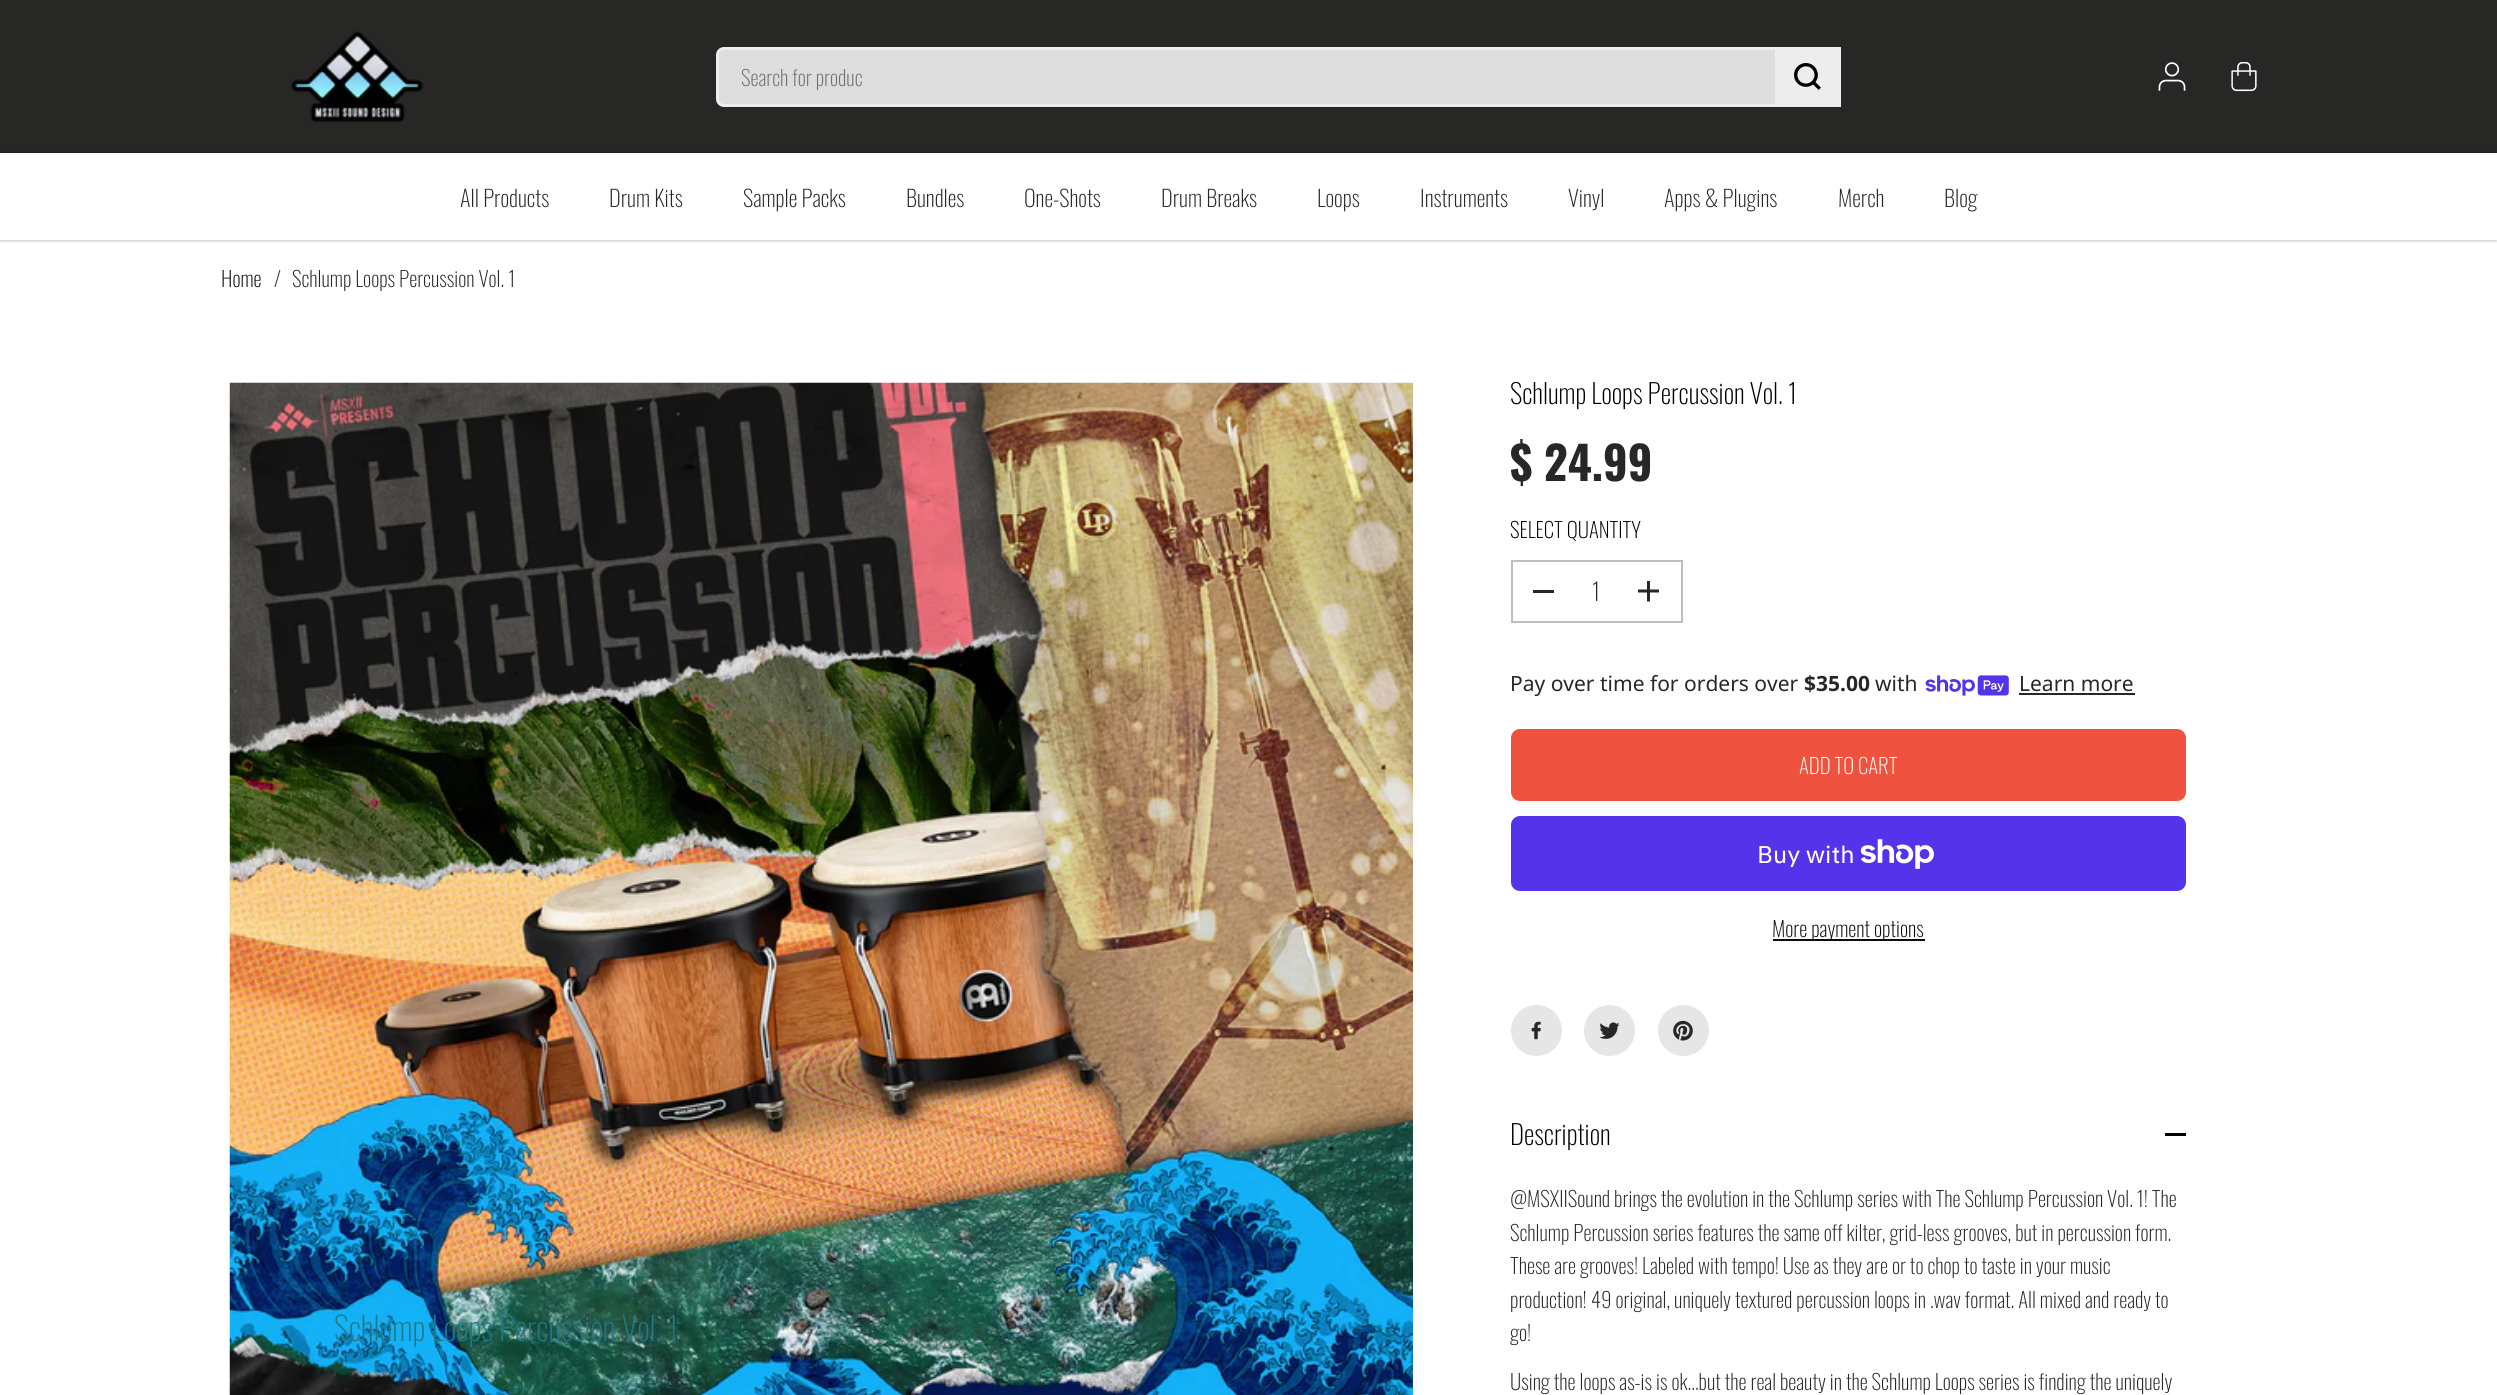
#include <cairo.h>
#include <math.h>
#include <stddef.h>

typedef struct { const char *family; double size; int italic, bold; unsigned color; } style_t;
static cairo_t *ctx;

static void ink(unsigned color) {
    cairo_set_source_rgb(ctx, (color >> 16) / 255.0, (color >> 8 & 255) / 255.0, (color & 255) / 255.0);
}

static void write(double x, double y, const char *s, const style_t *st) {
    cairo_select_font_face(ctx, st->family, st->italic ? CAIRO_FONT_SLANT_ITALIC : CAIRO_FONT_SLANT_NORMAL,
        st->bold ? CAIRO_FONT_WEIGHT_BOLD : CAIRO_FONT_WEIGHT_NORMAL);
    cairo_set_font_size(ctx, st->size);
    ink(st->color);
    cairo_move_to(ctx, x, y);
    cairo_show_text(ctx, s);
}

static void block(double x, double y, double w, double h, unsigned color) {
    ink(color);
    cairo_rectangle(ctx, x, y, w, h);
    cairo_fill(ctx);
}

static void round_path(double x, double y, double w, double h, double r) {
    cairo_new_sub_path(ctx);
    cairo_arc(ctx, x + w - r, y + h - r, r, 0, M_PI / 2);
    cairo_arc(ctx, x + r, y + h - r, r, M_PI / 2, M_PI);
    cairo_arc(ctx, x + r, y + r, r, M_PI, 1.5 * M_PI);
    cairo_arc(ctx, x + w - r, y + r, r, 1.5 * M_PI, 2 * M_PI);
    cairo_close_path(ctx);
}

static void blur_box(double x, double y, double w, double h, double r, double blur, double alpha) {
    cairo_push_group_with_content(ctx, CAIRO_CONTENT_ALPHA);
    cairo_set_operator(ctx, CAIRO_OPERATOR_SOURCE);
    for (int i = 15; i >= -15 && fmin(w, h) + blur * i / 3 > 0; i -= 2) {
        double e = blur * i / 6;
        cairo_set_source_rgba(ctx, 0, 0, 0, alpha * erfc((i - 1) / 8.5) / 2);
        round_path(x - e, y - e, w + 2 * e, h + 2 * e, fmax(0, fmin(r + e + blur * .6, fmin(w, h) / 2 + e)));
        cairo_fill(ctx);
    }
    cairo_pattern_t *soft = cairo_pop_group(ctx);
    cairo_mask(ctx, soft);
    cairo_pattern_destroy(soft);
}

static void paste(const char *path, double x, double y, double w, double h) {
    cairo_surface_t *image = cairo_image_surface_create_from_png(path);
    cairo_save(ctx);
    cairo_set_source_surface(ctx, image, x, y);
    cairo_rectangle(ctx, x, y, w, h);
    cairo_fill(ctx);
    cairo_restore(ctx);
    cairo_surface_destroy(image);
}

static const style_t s1 = {"Oswald ExtraLight", 21, 0, 0, 0x6f6f6f};
static const style_t s2 = {"Oswald ExtraLight", 22.5, 0, 0, 0x272725};
static const style_t s3 = {"Oswald ExtraLight", 21, 0, 0, 0x0d0b0a};
static const style_t s4 = {"Oswald ExtraLight", 21, 0, 0, 0x272725};
static const style_t s5 = {"Oswald ExtraLight", 32.4, 0, 0, 0x237786};
static const style_t s6 = {"Oswald ExtraLight", 27, 0, 0, 0x010000};
static const style_t s7 = {"Oswald", 46, 0, 1, 0x272725};
static const style_t s8 = {"Oswald ExtraLight", 21, 0, 0, 0x010000};
static const style_t s9 = {"Oswald ExtraLight", 24, 0, 0, 0x272725};
static const style_t s10 = {"Noto Sans", 21, 0, 0, 0x272725};
static const style_t s11 = {"Noto Sans", 21, 0, 1, 0x272725};
static const style_t s12 = {"Oswald ExtraLight", 21, 0, 0, 0xffffff};
static const style_t s13 = {"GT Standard", 24, 0, 0, 0xffffff};

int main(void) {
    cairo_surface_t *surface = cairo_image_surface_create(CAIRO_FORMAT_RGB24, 2497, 1395);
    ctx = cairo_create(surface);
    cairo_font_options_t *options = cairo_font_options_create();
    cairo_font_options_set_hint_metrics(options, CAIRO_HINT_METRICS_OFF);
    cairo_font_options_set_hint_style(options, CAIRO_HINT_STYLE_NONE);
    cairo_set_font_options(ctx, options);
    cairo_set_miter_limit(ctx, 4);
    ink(0xffffff);
    cairo_paint(ctx);
    block(0, 0, 2497, 153, 0x272725);
    cairo_save(ctx);
    cairo_rectangle(ctx, 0, 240, 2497, 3);
    cairo_clip(ctx);
    ink(0x000000);
    blur_box(0, 3, 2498, 240, 0, 1.5, 0.05);
    cairo_restore(ctx);
    paste("pic1.png", 291, 31, 133, 91);
    ink(0xdddddd);
    round_path(717.5, 48.5, 1122, 57, 6.5);
    cairo_fill_preserve(ctx);
    ink(0xededed);
    cairo_set_line_width(ctx, 3);
    cairo_stroke(ctx);
    write(741, 86, "Search for produc", &s1);
    block(1775, 47, 66, 60, 0xededed);
    paste("pic2.png", 1794, 63, 27, 27);
    paste("pic3.png", 2158, 62, 28, 29);
    paste("pic4.png", 2231, 62, 26, 30);
    ink(0x000000);
    blur_box(-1, 153, 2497, 87, 0, 1.5, 0.3);
    block(0, 153, 2497, 87, 0xffffff);
    write(460, 207, "All Products", &s2);
    write(609, 207, "Drum Kits", &s2);
    write(743, 207, "Sample Packs", &s2);
    write(906, 207, "Bundles", &s2);
    write(1024, 207, "One-Shots", &s2);
    write(1161, 207, "Drum Breaks", &s2);
    write(1317, 207, "Loops", &s2);
    write(1420, 207, "Instruments", &s2);
    write(1568, 207, "Vinyl", &s2);
    write(1664, 207, "Apps & Plugins", &s2);
    write(1838, 207, "Merch", &s2);
    write(1944, 207, "Blog", &s2);
    write(221, 287, "Home", &s3);
    write(274, 287, "/", &s4);
    write(292, 287, "Schlump Loops Percussion Vol. 1", &s4);
    paste("pic5.png", 229, 382, 1184, 1013);
    write(334, 1341, "Schlump Loops Percussion Vol. 1", &s5);
    write(1510, 404, "Schlump Loops Percussion Vol. 1", &s6);
    write(1510, 481, "$ 24.99", &s7);
    write(1510, 538, "SELECT QUANTITY", &s8);
    cairo_rectangle(ctx, 1512, 561, 170, 61);
    ink(0xbebebe);
    cairo_set_line_width(ctx, 2);
    cairo_stroke(ctx);
    block(1533, 590, 21, 3, 0x272725);
    write(1592, 601, "1", &s9);
    paste("pic6.png", 1638, 581, 21, 21);
    write(1510, 691, "Pay over time for orders over", &s10);
    write(1804, 691, "$35.00", &s11);
    write(1875, 691, "with", &s10);
    paste("pic7.png", 1925, 675, 84, 21);
    write(2019, 691, "Learn more", &s10);
    block(2019, 693, 116, 2, 0x272725);
    ink(0xef523e);
    round_path(1512, 730, 673, 70, 8);
    cairo_fill_preserve(ctx);
    cairo_stroke(ctx);
    write(1799, 774, "ADD TO CART", &s12);
    ink(0x5433eb);
    round_path(1511, 816, 675, 75, 9);
    cairo_fill(ctx);
    write(1757, 863, "Buy with", &s13);
    paste("pic8.png", 1860, 839, 74, 30);
    block(1773, 939, 152, 2, 0x0d0b0a);
    write(1772, 937, "More payment options", &s3);
    ink(0xe6e6e6);
    cairo_new_path(ctx);
    cairo_arc(ctx, 1536.5, 1030.5, 25.5, 0, 2 * M_PI);
    cairo_fill(ctx);
    paste("pic9.png", 1531, 1021, 10, 19);
    cairo_arc(ctx, 1609.5, 1030.5, 25.5, 0, 2 * M_PI);
    cairo_fill(ctx);
    paste("pic10.png", 1599, 1022, 21, 17);
    cairo_arc(ctx, 1683.5, 1030.5, 25.5, 0, 2 * M_PI);
    cairo_fill(ctx);
    paste("pic11.png", 1673, 1020, 20, 21);
    write(1510, 1145, "Description", &s6);
    block(2165, 1133, 21, 3, 0x010000);
    write(1510, 1207, "@MSXIISound brings the evolution in the Schlump series with The Schlump Percussion Vol. 1! The", &s4);
    write(1510, 1241, "Schlump Percussion series features the same off kilter, grid-less grooves, but in percussion form.", &s4);
    write(1510, 1274, "These are grooves! Labeled with tempo! Use as they are or to chop to taste in your music", &s4);
    write(1510, 1308, "production! 49 original, uniquely textured percussion loops in .wav format. All mixed and ready to", &s4);
    write(1510, 1341, "go!", &s4);
    write(1510, 1390, "Using the loops as-is is ok...but the real beauty in the Schlump Loops series is finding the uniquely", &s4);
    cairo_surface_write_to_png(surface, "screenshot.png");
    cairo_font_options_destroy(options);
    cairo_destroy(ctx);
    cairo_surface_destroy(surface);
    return 0;
}
